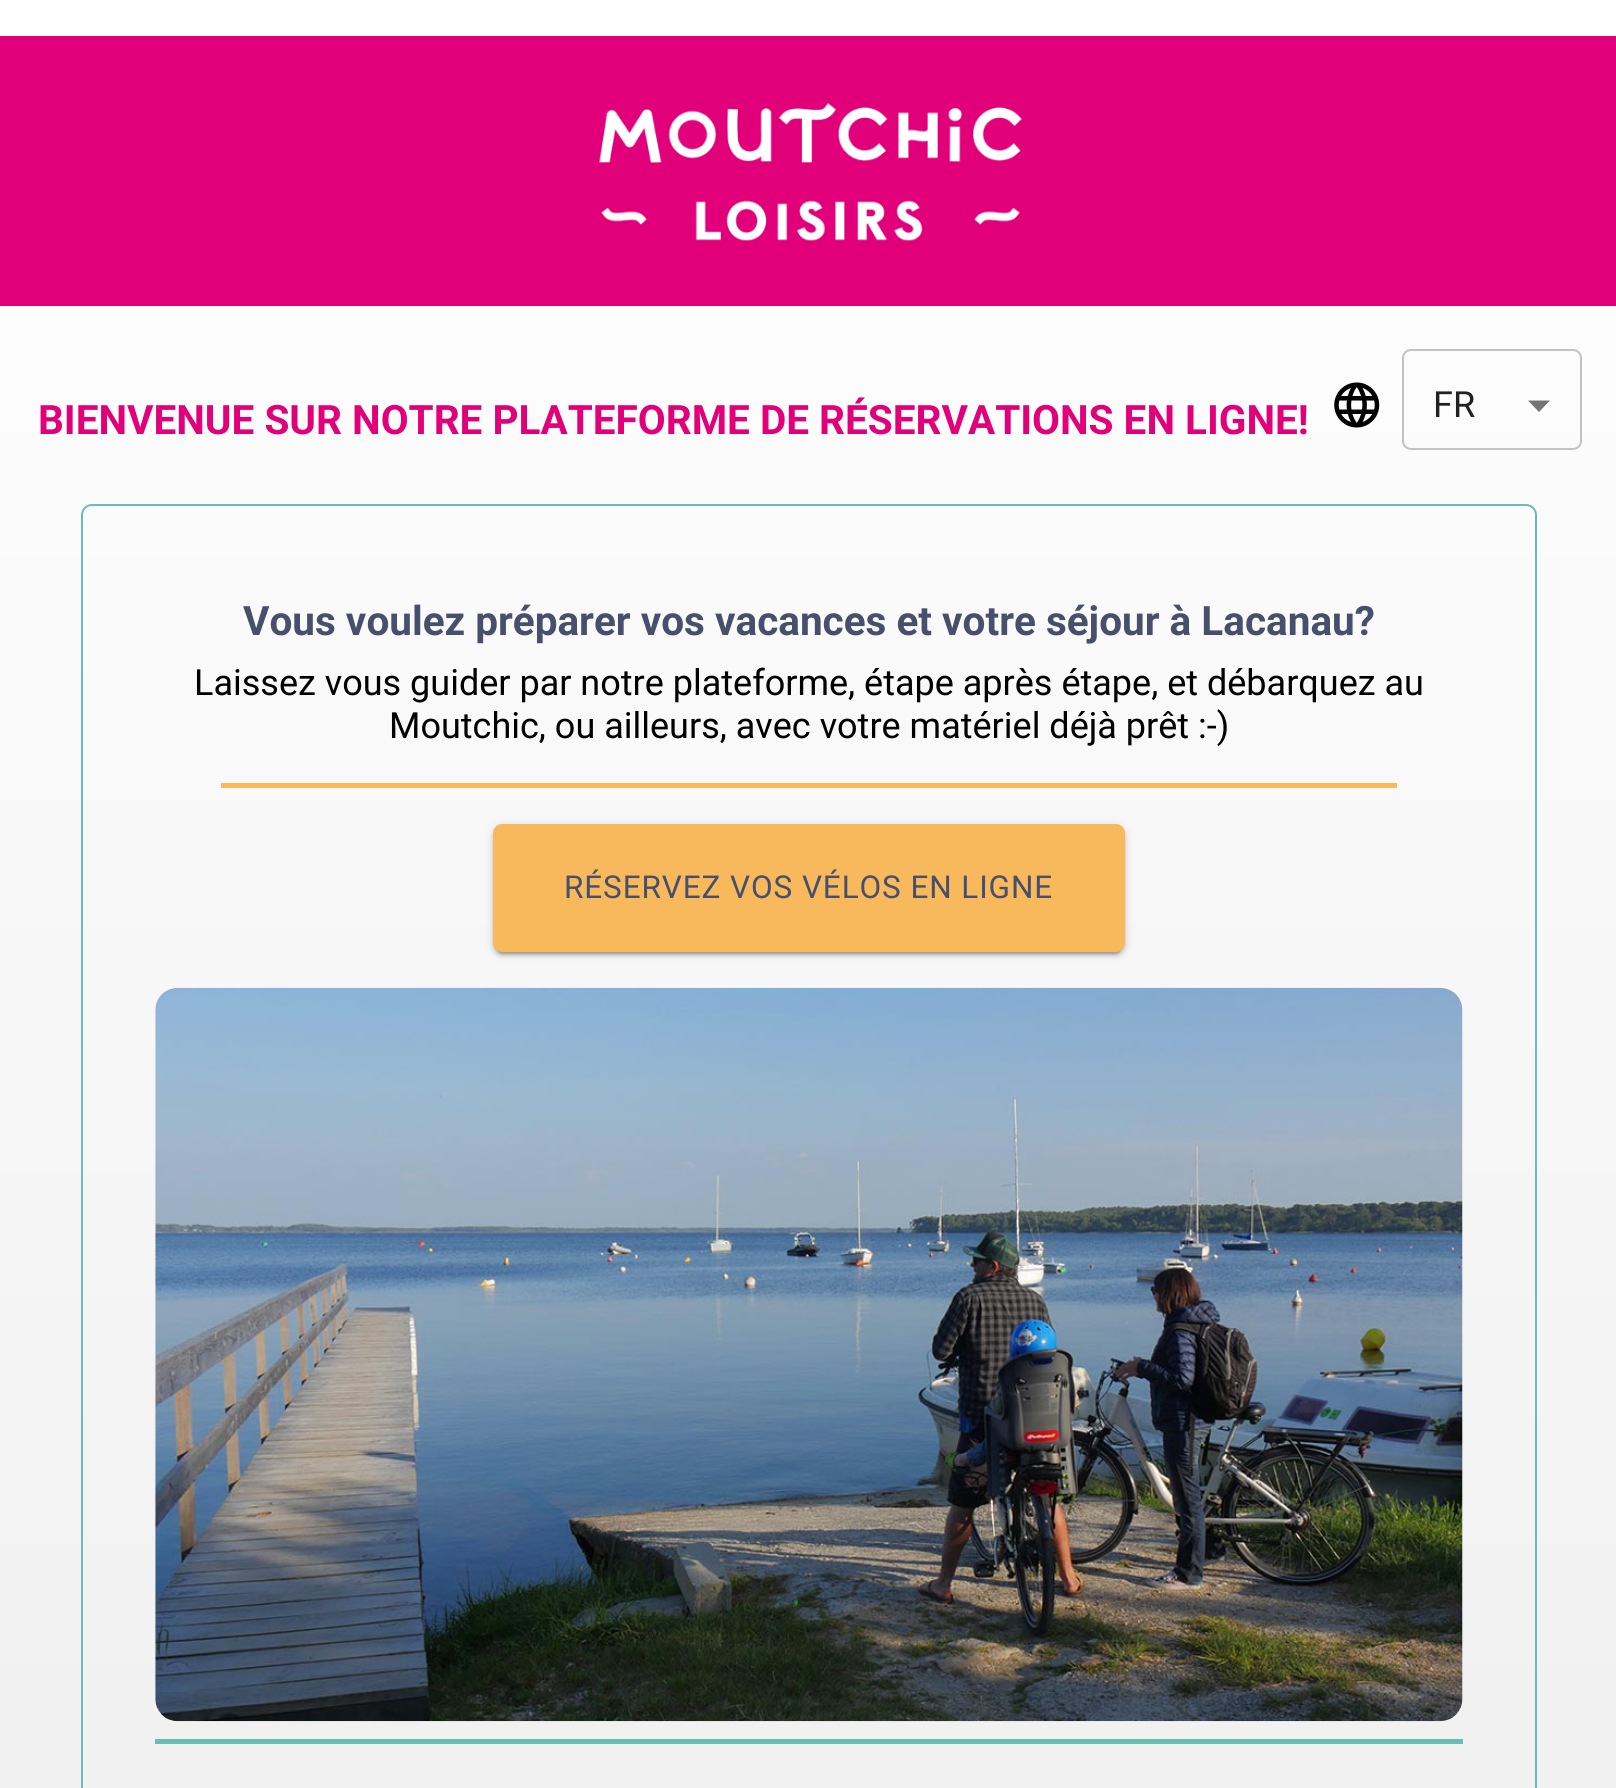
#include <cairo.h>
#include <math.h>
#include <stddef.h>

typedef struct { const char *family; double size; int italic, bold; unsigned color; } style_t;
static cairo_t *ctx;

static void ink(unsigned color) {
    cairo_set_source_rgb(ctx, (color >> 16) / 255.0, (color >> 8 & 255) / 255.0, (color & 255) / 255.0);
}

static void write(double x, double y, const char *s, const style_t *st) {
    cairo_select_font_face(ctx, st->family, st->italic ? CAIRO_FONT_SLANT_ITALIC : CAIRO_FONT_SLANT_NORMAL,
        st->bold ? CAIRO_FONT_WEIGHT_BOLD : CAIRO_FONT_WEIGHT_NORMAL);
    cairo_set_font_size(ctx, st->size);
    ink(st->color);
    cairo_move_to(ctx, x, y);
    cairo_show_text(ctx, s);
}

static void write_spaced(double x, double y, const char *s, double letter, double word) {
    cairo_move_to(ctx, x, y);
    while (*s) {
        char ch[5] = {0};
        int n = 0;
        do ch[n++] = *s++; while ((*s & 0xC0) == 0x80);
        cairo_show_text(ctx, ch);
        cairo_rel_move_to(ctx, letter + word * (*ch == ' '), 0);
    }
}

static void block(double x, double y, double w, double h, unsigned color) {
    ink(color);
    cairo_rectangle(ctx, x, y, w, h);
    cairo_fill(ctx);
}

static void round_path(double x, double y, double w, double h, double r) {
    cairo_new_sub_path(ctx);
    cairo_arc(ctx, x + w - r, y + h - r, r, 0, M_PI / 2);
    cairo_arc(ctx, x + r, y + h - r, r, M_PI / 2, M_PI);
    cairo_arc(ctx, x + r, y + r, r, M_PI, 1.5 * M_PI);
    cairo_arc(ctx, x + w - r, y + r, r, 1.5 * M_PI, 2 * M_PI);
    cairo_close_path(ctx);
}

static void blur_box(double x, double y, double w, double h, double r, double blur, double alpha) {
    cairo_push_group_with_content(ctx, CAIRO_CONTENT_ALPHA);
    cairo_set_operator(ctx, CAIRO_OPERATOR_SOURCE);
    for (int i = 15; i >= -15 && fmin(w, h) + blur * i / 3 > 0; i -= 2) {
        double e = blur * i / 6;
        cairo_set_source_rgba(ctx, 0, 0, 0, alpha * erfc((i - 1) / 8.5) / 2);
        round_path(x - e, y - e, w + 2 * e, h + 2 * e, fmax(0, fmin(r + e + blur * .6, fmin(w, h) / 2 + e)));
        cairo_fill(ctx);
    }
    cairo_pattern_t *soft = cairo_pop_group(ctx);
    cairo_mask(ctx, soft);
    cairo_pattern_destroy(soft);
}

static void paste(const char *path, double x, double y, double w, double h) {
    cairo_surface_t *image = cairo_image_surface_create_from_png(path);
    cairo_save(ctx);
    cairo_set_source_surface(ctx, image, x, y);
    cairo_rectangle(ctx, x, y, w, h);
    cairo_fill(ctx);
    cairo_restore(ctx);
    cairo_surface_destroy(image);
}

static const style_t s1 = {"Roboto", 40.5, 0, 1, 0xe2007a};
static const style_t s2 = {"Roboto", 36, 0, 0, 0x212121};
static const style_t s3 = {"Roboto", 40.5, 0, 1, 0x474f6c};
static const style_t s4 = {"Roboto", 36, 0, 0, 0x000000};

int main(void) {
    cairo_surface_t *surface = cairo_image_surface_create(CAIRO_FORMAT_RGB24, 1616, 1788);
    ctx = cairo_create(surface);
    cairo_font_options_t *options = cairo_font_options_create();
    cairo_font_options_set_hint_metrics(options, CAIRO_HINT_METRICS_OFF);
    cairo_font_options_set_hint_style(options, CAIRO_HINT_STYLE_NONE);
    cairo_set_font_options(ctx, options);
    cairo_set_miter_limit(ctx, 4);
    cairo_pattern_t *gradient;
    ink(0xffffff);
    cairo_paint(ctx);
    gradient = cairo_pattern_create_linear(809, 0, 809, 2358);
    cairo_pattern_add_color_stop_rgba(gradient, 0, 1, 1, 1, 1);
    cairo_pattern_add_color_stop_rgba(gradient, 1, 0.925, 0.925, 0.925, 1);
    cairo_set_source(ctx, gradient);
    cairo_pattern_destroy(gradient);
    cairo_rectangle(ctx, 0, 310, 1616, 1478);
    cairo_fill(ctx);
    block(0, 36, 1616, 270, 0xe2007a);
    paste("pic1.png", 599, 103, 423, 138);
    write(38, 434, "BIENVENUE SUR NOTRE PLATEFORME DE RÉSERVATIONS EN LIGNE!", &s1);
    paste("pic2.png", 1334, 382, 46, 46);
    ink(0x747474);
    cairo_new_path(ctx);
    cairo_move_to(ctx, 1528, 400.5);
    cairo_line_to(ctx, 1539, 412);
    cairo_line_to(ctx, 1550, 400.5);
    cairo_close_path(ctx);
    cairo_fill(ctx);
    round_path(1403, 350, 178, 99, 8);
    ink(0xc2c2c2);
    cairo_stroke(ctx);
    write(1433, 417, "FR", &s2);
    round_path(82, 505, 1454, 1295, 10);
    ink(0x6bbdb1);
    cairo_stroke(ctx);
    write(243, 635, "Vous voulez préparer vos vacances et votre séjour à Lacanau?", &s3);
    write(194, 695, "Laissez vous guider par notre plateforme, étape après étape, et débarquez au", &s4);
    write(389, 738, "Moutchic, ou ailleurs, avec votre matériel déjà prêt :-)", &s4);
    block(221, 783, 1176, 5, 0xf8b95c);
    ink(0x000000);
    blur_box(493, 826, 632, 128, 9, 5.5, 0.12);
    blur_box(493, 828, 632, 128, 9, 2, 0.14);
    blur_box(497, 835, 624, 119, 5, 1, 0.2);
    ink(0xf8b95c);
    round_path(493, 824, 632, 128, 9);
    cairo_fill(ctx);
    cairo_set_font_size(ctx, 31.5);
    ink(0x474f6c);
    write_spaced(564, 898, "RÉSERVEZ VOS VÉLOS EN LIGNE", 0.9, 0);
    paste("pic3.png", 155, 987, 1308, 735);
    block(155, 1739, 1308, 5, 0x6bbdb1);
    cairo_surface_write_to_png(surface, "screenshot.png");
    cairo_font_options_destroy(options);
    cairo_destroy(ctx);
    cairo_surface_destroy(surface);
    return 0;
}
